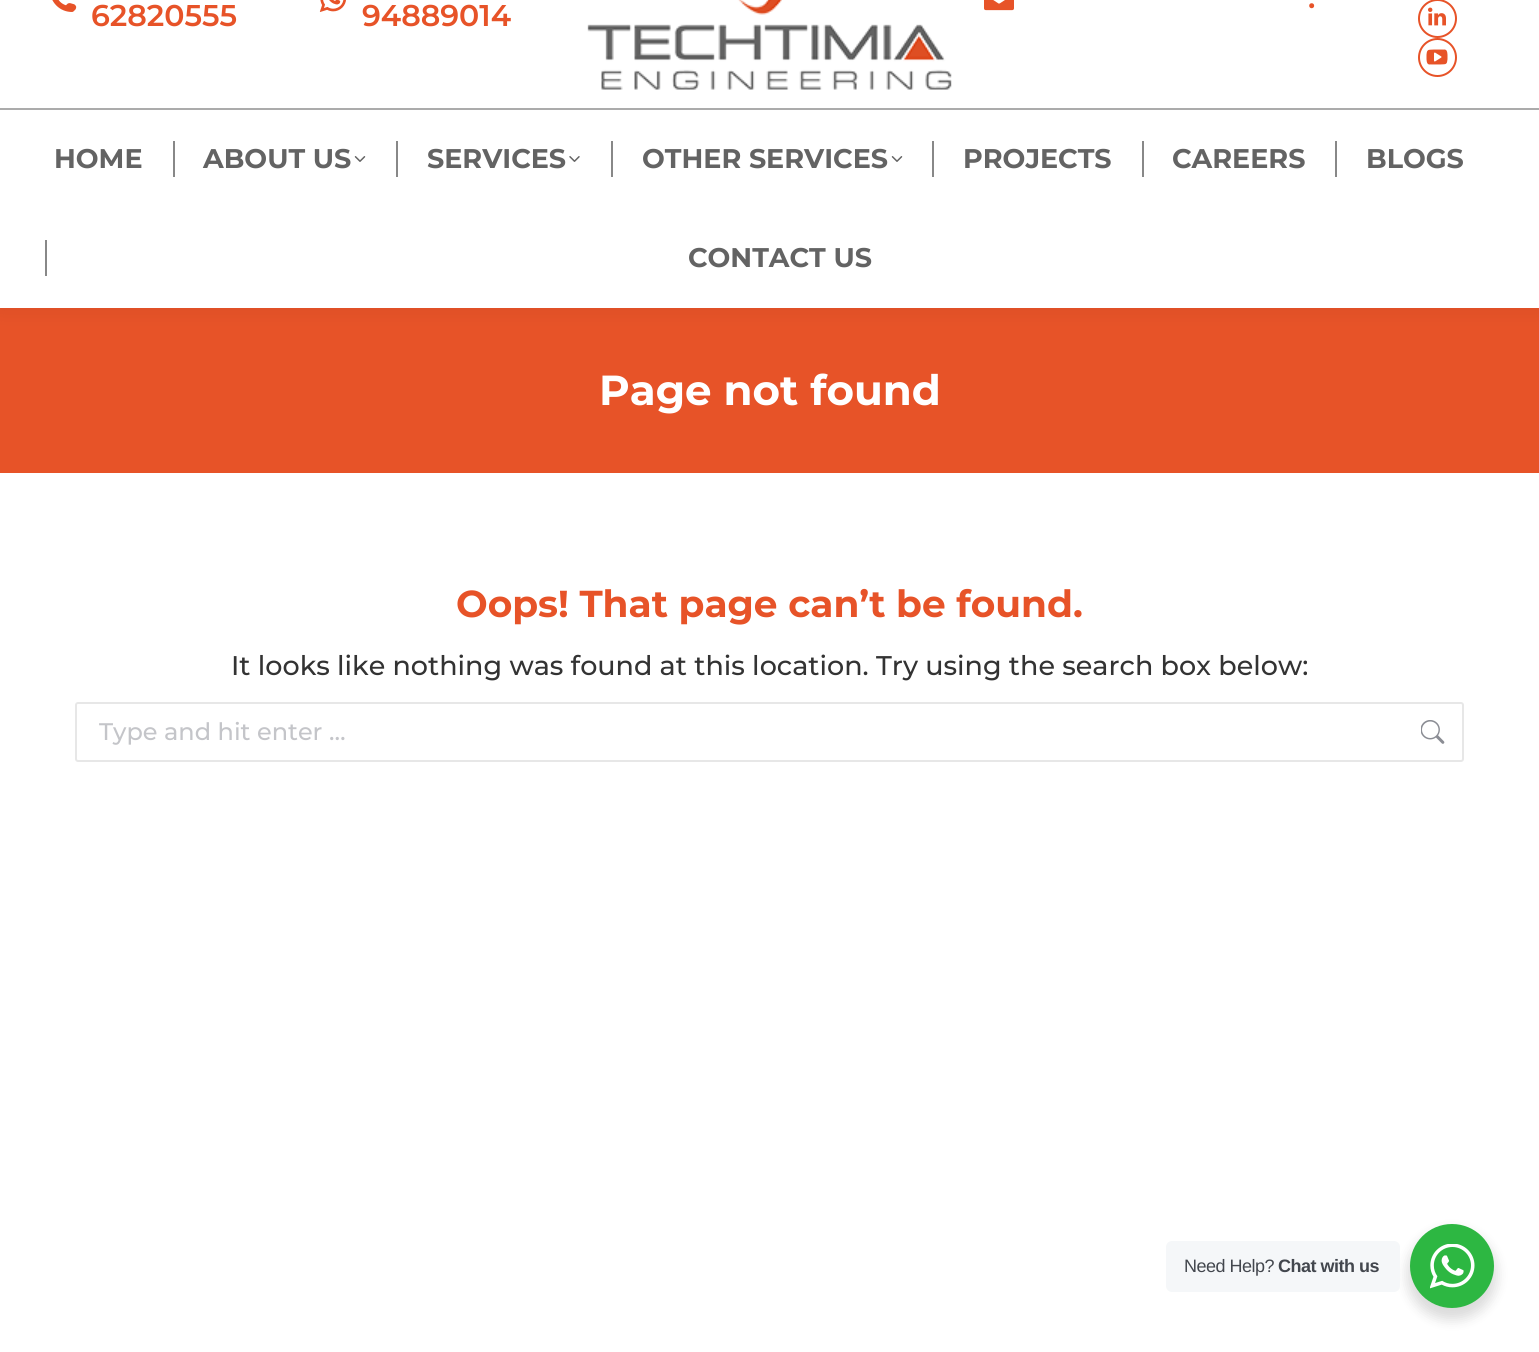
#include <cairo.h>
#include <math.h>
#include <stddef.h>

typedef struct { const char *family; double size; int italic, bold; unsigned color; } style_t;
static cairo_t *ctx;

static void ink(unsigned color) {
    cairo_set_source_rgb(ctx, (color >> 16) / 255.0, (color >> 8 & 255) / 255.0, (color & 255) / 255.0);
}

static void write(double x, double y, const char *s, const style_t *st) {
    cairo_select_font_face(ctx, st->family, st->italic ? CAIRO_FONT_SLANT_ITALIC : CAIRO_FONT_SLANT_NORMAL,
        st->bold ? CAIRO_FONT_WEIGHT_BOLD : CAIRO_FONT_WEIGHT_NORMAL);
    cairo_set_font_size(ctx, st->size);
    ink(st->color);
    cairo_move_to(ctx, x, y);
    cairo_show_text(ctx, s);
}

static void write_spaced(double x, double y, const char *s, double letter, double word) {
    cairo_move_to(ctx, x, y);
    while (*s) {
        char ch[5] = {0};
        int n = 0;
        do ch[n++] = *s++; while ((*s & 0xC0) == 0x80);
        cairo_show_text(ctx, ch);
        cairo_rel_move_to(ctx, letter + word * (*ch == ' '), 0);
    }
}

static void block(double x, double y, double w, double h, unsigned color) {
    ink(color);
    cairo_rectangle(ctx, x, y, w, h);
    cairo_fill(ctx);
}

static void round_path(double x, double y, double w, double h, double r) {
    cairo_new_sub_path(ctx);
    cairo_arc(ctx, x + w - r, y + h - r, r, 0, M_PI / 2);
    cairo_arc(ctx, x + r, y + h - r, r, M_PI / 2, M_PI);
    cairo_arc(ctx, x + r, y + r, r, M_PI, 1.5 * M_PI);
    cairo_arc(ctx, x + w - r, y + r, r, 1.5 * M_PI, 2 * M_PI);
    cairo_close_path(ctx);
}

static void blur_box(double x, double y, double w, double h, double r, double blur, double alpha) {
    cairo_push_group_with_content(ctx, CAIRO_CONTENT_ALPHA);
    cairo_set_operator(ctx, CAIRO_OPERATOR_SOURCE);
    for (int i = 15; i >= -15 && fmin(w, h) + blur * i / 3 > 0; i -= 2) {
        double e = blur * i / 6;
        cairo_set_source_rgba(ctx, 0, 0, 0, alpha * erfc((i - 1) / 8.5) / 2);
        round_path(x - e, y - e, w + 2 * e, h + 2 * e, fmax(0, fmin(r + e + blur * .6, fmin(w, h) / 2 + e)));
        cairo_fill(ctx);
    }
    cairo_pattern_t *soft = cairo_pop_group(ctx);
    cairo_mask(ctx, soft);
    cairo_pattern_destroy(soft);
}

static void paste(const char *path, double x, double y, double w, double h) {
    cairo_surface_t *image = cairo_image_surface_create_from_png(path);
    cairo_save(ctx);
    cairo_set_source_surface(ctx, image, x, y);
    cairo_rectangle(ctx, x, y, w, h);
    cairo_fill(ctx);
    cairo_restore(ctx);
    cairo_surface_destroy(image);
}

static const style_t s1 = {"Montserrat SemiBold", 30, 0, 0, 0xe75328};
static const style_t s2 = {"Montserrat", 27, 0, 1, 0x636363};
static const style_t s3 = {"Montserrat", 42, 0, 1, 0xffffff};
static const style_t s4 = {"Montserrat", 37.5, 0, 1, 0xe75328};
static const style_t s5 = {"Montserrat Medium", 27, 0, 0, 0x333333};
static const style_t s6 = {"Montserrat Medium", 24, 0, 0, 0xc4c5c9};

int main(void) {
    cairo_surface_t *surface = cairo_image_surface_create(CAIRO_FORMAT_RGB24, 1539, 1352);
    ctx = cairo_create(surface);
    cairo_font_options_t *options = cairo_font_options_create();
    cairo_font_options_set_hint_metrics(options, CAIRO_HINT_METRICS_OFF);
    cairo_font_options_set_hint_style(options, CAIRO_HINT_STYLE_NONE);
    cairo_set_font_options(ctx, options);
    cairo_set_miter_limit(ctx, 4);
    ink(0xffffff);
    cairo_paint(ctx);
    block(0, 308, 1539, 165, 0xe75328);
    ink(0x000000);
    blur_box(-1, -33, 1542, 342, 0, 11, 0.07);
    block(0, 0, 1539, 308, 0xffffff);
    paste("pic1.png", 52, 0, 25, 12);
    write(91, 26, "62820555", &s1);
    paste("pic2.png", 319, 0, 27, 12);
    write(362, 26, "94889014", &s1);
    paste("pic3.png", 587, 0, 365, 90);
    paste("pic4.png", 984, 0, 30, 11);
    write(1308, 8, ".", &s1);
    cairo_new_path(ctx);
    cairo_arc(ctx, 1437.5, 18.5, 18.5, 0, 2 * M_PI);
    cairo_stroke(ctx);
    paste("pic5.png", 1428, 7, 18, 19);
    cairo_arc(ctx, 1437.5, 57.5, 18.5, 0, 2 * M_PI);
    cairo_stroke(ctx);
    paste("pic6.png", 1426, 49, 22, 16);
    block(0, 108, 1539, 2, 0xababab);
    write(54, 168, "HOME", &s2);
    block(173, 141, 2, 36, 0x888888);
    write(203, 168, "ABOUT US", &s2);
    paste("pic7.png", 354, 156, 12, 6);
    block(396, 141, 2, 36, 0x888888);
    write(427, 168, "SERVICES", &s2);
    paste("pic8.png", 569, 156, 11, 6);
    block(611, 141, 2, 36, 0x888888);
    write(642, 168, "OTHER SERVICES", &s2);
    paste("pic7.png", 891, 156, 12, 6);
    block(932, 141, 2, 36, 0x888888);
    write(963, 168, "PROJECTS", &s2);
    block(1142, 141, 2, 36, 0x888888);
    write(1172, 168, "CAREERS", &s2);
    block(1335, 141, 2, 36, 0x888888);
    write(1366, 168, "BLOGS", &s2);
    block(45, 240, 2, 36, 0x888888);
    write(688, 267, "CONTACT US", &s2);
    write(599, 405, "Page not found", &s3);
    write(456, 617, "Oops! That page can’t be found.", &s4);
    write(231, 675, "It looks like nothing was found at this location. Try using the search box below:", &s5);
    round_path(76, 703, 1387, 58, 2);
    ink(0xe7e7e7);
    cairo_stroke(ctx);
    write(99, 740, "Type and hit enter …", &s6);
    paste("pic9.png", 1421, 720, 24, 24);
    ink(0x000000);
    blur_box(1407, 1230, 90, 90, 45, 6, 0.14);
    ink(0xf5f7f9);
    round_path(1166, 1241, 234, 51, 6);
    cairo_fill(ctx);
    cairo_select_font_face(ctx, "Liberation Sans", CAIRO_FONT_SLANT_NORMAL, CAIRO_FONT_WEIGHT_NORMAL);
    cairo_set_font_size(ctx, 18);
    ink(0x43474e);
    write_spaced(1184, 1272, "Need Help?", -0.5, 0);
    cairo_select_font_face(ctx, "Liberation Sans", CAIRO_FONT_SLANT_NORMAL, CAIRO_FONT_WEIGHT_BOLD);
    write_spaced(1278, 1272, "Chat with us", -0.5, 0);
    ink(0x2db742);
    cairo_new_path(ctx);
    cairo_arc(ctx, 1452, 1266, 42, 0, 2 * M_PI);
    cairo_fill(ctx);
    paste("pic10.png", 1430, 1244, 45, 45);
    cairo_surface_write_to_png(surface, "screenshot.png");
    cairo_font_options_destroy(options);
    cairo_destroy(ctx);
    cairo_surface_destroy(surface);
    return 0;
}
